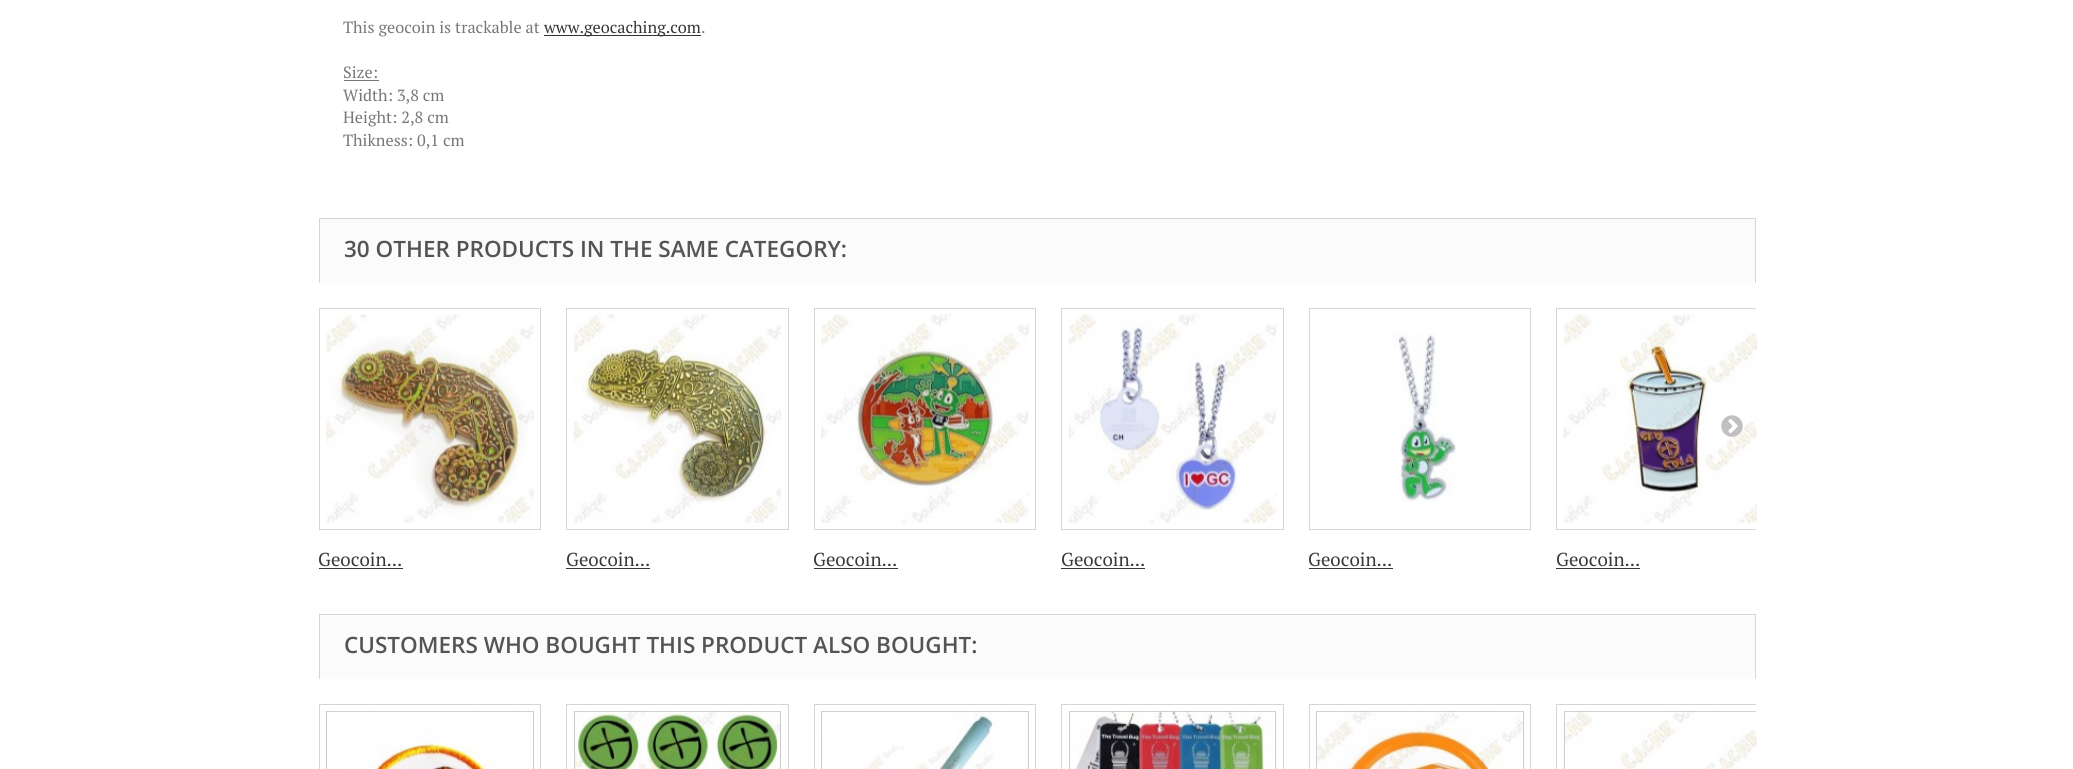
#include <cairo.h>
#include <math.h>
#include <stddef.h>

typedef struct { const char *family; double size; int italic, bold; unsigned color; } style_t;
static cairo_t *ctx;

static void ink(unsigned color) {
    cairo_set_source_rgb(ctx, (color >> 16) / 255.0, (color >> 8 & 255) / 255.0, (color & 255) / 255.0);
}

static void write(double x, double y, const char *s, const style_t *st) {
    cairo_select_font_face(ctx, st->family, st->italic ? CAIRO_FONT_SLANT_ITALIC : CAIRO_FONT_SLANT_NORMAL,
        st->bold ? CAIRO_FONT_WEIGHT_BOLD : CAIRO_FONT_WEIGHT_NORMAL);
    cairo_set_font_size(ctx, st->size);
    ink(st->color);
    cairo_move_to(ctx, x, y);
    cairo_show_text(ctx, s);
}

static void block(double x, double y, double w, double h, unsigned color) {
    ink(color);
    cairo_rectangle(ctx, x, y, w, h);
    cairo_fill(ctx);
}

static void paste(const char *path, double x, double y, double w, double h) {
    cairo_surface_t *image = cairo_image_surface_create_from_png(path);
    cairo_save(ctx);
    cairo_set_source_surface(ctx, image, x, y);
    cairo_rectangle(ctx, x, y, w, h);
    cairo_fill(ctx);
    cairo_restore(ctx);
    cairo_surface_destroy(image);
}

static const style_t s1 = {"PT Serif", 16.25, 0, 0, 0x777777};
static const style_t s2 = {"PT Serif", 16.25, 0, 0, 0x333333};
static const style_t s3 = {"Open Sans SemiBold", 22.5, 0, 0, 0x555454};
static const style_t s4 = {"PT Serif", 18.75, 0, 0, 0x3a3939};

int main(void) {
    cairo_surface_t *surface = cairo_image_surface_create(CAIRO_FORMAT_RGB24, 2073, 769);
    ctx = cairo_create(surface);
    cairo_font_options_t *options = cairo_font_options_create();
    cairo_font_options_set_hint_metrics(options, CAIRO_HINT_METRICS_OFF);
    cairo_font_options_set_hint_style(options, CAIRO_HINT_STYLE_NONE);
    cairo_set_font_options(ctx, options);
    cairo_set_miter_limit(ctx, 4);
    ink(0xffffff);
    cairo_paint(ctx);
    write(343, 33, "This geocoin is trackable at", &s1);
    block(544, 35, 157, 1, 0x333333);
    write(544, 33, "www.geocaching.com", &s2);
    write(701, 33, ".", &s1);
    write(343, 78, "Size:", &s1);
    block(344, 80, 35, 1, 0x777777);
    write(343, 101, "Width: 3,8 cm", &s1);
    write(343, 123, "Height: 2,8 cm", &s1);
    write(343, 146, "Thikness: 0,1 cm", &s1);
    block(320, 219, 1435, 64, 0xfbfbfb);
    block(319, 218, 1437, 1, 0xd6d4d4);
    block(1755, 218, 1, 65, 0xd6d4d4);
    block(319, 218, 1, 65, 0xd6d4d4);
    write(344, 257, "30 OTHER PRODUCTS IN THE SAME CATEGORY:", &s3);
    cairo_save(ctx);
    cairo_rectangle(ctx, 319, 308, 1437, 293);
    cairo_clip(ctx);
    cairo_rectangle(ctx, 1556.5, 308.5, 222, 221);
    ink(0xd6d4d4);
    cairo_set_line_width(ctx, 1);
    cairo_stroke(ctx);
    cairo_restore(ctx);
    paste("pic7.png", 1563, 314, 194, 209);
    paste("pic1.png", 1721, 415, 22, 22);
    cairo_rectangle(ctx, 319.5, 308.5, 221, 221);
    ink(0xd6d4d4);
    cairo_set_line_width(ctx, 1);
    cairo_stroke(ctx);
    paste("pic2.png", 326, 314, 208, 209);
    write(318, 566, "Geocoin...", &s4);
    block(319, 568, 84, 1, 0x3a3939);
    cairo_rectangle(ctx, 566.5, 308.5, 222, 221);
    ink(0xd6d4d4);
    cairo_stroke(ctx);
    paste("pic3.png", 573, 314, 209, 209);
    write(566, 566, "Geocoin...", &s4);
    block(566, 568, 84, 1, 0x3a3939);
    cairo_rectangle(ctx, 814.5, 308.5, 221, 221);
    ink(0xd6d4d4);
    cairo_stroke(ctx);
    paste("pic4.png", 821, 314, 208, 209);
    write(813, 566, "Geocoin...", &s4);
    block(814, 568, 84, 1, 0x3a3939);
    cairo_rectangle(ctx, 1061.5, 308.5, 222, 221);
    ink(0xd6d4d4);
    cairo_stroke(ctx);
    paste("pic5.png", 1068, 314, 209, 209);
    write(1061, 566, "Geocoin...", &s4);
    block(1061, 568, 84, 1, 0x3a3939);
    cairo_rectangle(ctx, 1309.5, 308.5, 221, 221);
    ink(0xd6d4d4);
    cairo_stroke(ctx);
    paste("pic6.png", 1393, 332, 64, 171);
    write(1308, 566, "Geocoin...", &s4);
    block(1309, 568, 84, 1, 0x3a3939);
    write(1556, 566, "Geocoin...", &s4);
    block(1556, 568, 84, 1, 0x3a3939);
    block(320, 615, 1435, 64, 0xfbfbfb);
    block(319, 614, 1437, 1, 0xd6d4d4);
    block(1755, 614, 1, 65, 0xd6d4d4);
    block(319, 614, 1, 65, 0xd6d4d4);
    write(344, 653, "CUSTOMERS WHO BOUGHT THIS PRODUCT ALSO BOUGHT:", &s3);
    cairo_rectangle(ctx, 319.5, 704.5, 221, 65);
    ink(0xd6d4d4);
    cairo_stroke(ctx);
    cairo_rectangle(ctx, 326.5, 711.5, 207, 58);
    ink(0xcccccc);
    cairo_stroke(ctx);
    paste("pic8.png", 328, 711, 204, 58);
    cairo_rectangle(ctx, 566.5, 704.5, 222, 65);
    ink(0xd6d4d4);
    cairo_stroke(ctx);
    cairo_rectangle(ctx, 574.5, 711.5, 206, 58);
    ink(0xcccccc);
    cairo_stroke(ctx);
    paste("pic9.png", 575, 711, 205, 58);
    cairo_rectangle(ctx, 814.5, 704.5, 221, 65);
    ink(0xd6d4d4);
    cairo_stroke(ctx);
    cairo_rectangle(ctx, 821.5, 711.5, 207, 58);
    ink(0xcccccc);
    cairo_stroke(ctx);
    paste("pic10.png", 823, 711, 204, 58);
    cairo_rectangle(ctx, 1061.5, 704.5, 222, 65);
    ink(0xd6d4d4);
    cairo_stroke(ctx);
    cairo_rectangle(ctx, 1069.5, 711.5, 206, 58);
    ink(0xcccccc);
    cairo_stroke(ctx);
    paste("pic11.png", 1070, 711, 205, 58);
    cairo_rectangle(ctx, 1309.5, 704.5, 221, 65);
    ink(0xd6d4d4);
    cairo_stroke(ctx);
    cairo_rectangle(ctx, 1316.5, 711.5, 207, 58);
    ink(0xcccccc);
    cairo_stroke(ctx);
    paste("pic12.png", 1317, 711, 206, 58);
    cairo_save(ctx);
    cairo_rectangle(ctx, 319, 704, 1437, 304);
    cairo_clip(ctx);
    cairo_rectangle(ctx, 1556.5, 704.5, 222, 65);
    ink(0xd6d4d4);
    cairo_stroke(ctx);
    cairo_rectangle(ctx, 1564.5, 711.5, 206, 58);
    ink(0xcccccc);
    cairo_stroke(ctx);
    cairo_restore(ctx);
    paste("pic13.png", 1565, 711, 192, 58);
    cairo_surface_write_to_png(surface, "screenshot.png");
    cairo_font_options_destroy(options);
    cairo_destroy(ctx);
    cairo_surface_destroy(surface);
    return 0;
}
